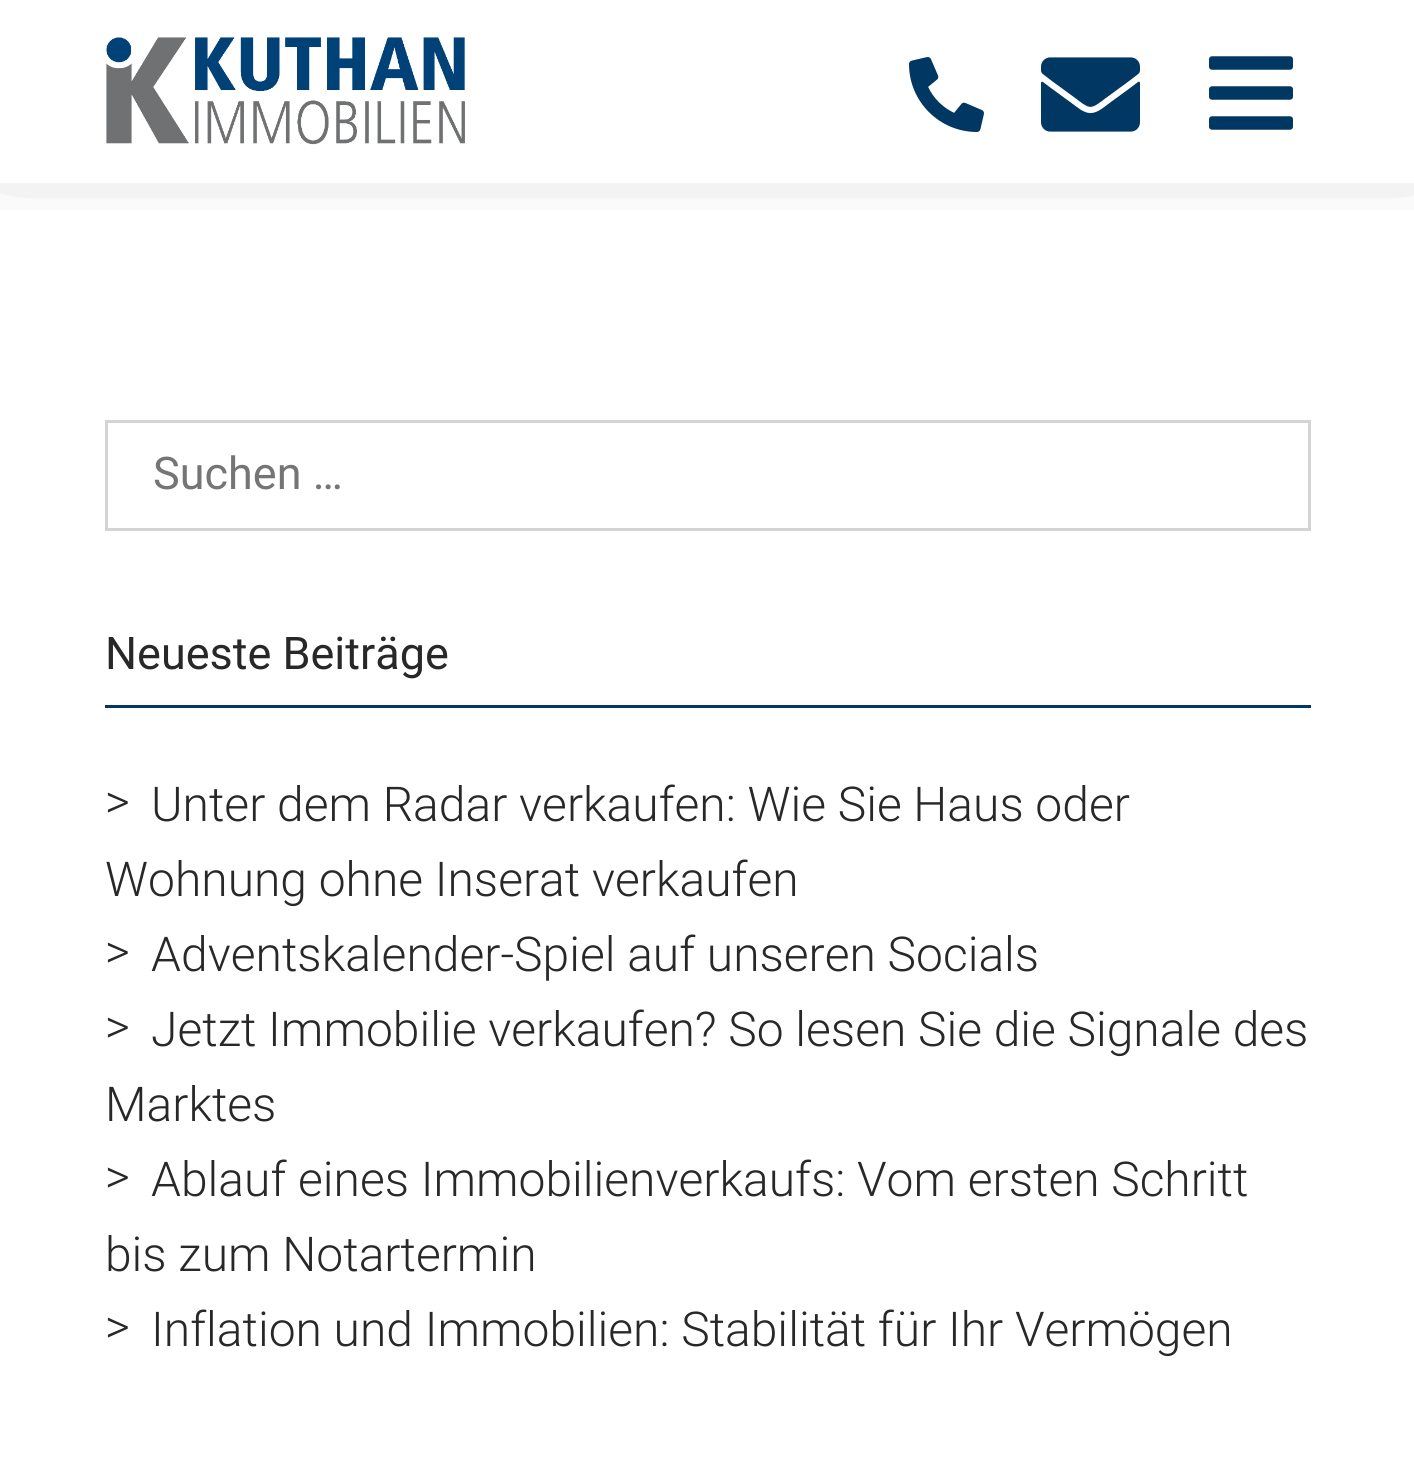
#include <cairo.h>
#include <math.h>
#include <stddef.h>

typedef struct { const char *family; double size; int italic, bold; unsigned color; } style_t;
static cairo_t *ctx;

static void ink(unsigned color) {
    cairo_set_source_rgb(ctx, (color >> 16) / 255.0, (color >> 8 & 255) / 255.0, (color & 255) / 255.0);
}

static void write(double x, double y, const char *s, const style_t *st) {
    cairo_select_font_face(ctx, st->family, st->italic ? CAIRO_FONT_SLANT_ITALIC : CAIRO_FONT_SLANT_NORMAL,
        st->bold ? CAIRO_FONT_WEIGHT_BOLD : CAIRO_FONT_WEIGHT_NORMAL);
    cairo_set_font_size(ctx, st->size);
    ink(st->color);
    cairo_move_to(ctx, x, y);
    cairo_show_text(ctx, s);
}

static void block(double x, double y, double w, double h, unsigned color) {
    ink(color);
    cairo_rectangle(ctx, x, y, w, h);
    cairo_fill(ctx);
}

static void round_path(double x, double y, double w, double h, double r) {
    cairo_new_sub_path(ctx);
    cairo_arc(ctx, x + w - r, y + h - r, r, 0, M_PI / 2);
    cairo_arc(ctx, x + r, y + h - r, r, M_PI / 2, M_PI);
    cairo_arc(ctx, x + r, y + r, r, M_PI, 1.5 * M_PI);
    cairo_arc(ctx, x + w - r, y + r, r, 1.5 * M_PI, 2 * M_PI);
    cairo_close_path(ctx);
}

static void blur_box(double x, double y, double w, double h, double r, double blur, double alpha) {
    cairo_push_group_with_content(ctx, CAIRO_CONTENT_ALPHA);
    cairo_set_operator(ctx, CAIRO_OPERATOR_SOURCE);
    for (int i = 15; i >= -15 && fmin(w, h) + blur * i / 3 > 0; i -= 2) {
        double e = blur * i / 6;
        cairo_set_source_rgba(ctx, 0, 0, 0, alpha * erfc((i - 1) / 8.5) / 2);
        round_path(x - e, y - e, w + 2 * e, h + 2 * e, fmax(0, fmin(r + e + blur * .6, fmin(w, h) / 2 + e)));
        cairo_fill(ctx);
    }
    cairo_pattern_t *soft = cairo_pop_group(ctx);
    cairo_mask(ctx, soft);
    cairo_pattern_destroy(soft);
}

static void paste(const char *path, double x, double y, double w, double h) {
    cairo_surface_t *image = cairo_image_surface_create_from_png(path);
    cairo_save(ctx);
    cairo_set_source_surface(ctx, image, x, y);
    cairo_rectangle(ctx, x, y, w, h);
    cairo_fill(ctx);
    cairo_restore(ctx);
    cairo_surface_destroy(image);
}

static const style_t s1 = {"Roboto", 45, 0, 0, 0x757575};
static const style_t s2 = {"Roboto", 45, 0, 0, 0x282828};
static const style_t s3 = {"Roboto Light", 48, 0, 0, 0x282828};

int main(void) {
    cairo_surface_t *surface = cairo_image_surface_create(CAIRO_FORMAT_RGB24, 1414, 1458);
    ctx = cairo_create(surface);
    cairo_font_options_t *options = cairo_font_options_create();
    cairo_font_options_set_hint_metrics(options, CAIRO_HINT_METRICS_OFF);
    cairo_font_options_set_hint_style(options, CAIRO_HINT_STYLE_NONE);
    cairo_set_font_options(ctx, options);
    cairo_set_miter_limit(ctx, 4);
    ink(0xffffff);
    cairo_paint(ctx);
    cairo_save(ctx);
    cairo_rectangle(ctx, 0, 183, 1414, 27);
    cairo_clip(ctx);
    ink(0x000000);
    blur_box(3, -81, 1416, 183, 0, 52.5, 1);
    cairo_restore(ctx);
    paste("pic1.png", 106, 37, 359, 108);
    paste("pic2.png", 909, 57, 75, 75);
    paste("pic3.png", 1041, 57, 99, 75);
    paste("pic4.png", 1209, 56, 84, 74);
    cairo_rectangle(ctx, 106.5, 421.5, 1203, 108);
    ink(0xd4d4d4);
    cairo_set_line_width(ctx, 3);
    cairo_stroke(ctx);
    write(153, 489, "Suchen …", &s1);
    block(105, 705, 1206, 3, 0x003863);
    write(105, 669, "Neueste Beiträge", &s2);
    write(105, 818, ">", &s3);
    write(151, 821, "Unter dem Radar verkaufen: Wie Sie Haus oder", &s3);
    write(105, 896, "Wohnung ohne Inserat verkaufen", &s3);
    write(105, 968, ">", &s3);
    write(151, 971, "Adventskalender-Spiel auf unseren Socials", &s3);
    write(105, 1043, ">", &s3);
    write(151, 1046, "Jetzt Immobilie verkaufen? So lesen Sie die Signale des", &s3);
    write(105, 1121, "Marktes", &s3);
    write(105, 1193, ">", &s3);
    write(151, 1196, "Ablauf eines Immobilienverkaufs: Vom ersten Schritt", &s3);
    write(105, 1271, "bis zum Notartermin", &s3);
    write(105, 1343, ">", &s3);
    write(151, 1346, "Inflation und Immobilien: Stabilität für Ihr Vermögen", &s3);
    cairo_surface_write_to_png(surface, "screenshot.png");
    cairo_font_options_destroy(options);
    cairo_destroy(ctx);
    cairo_surface_destroy(surface);
    return 0;
}
